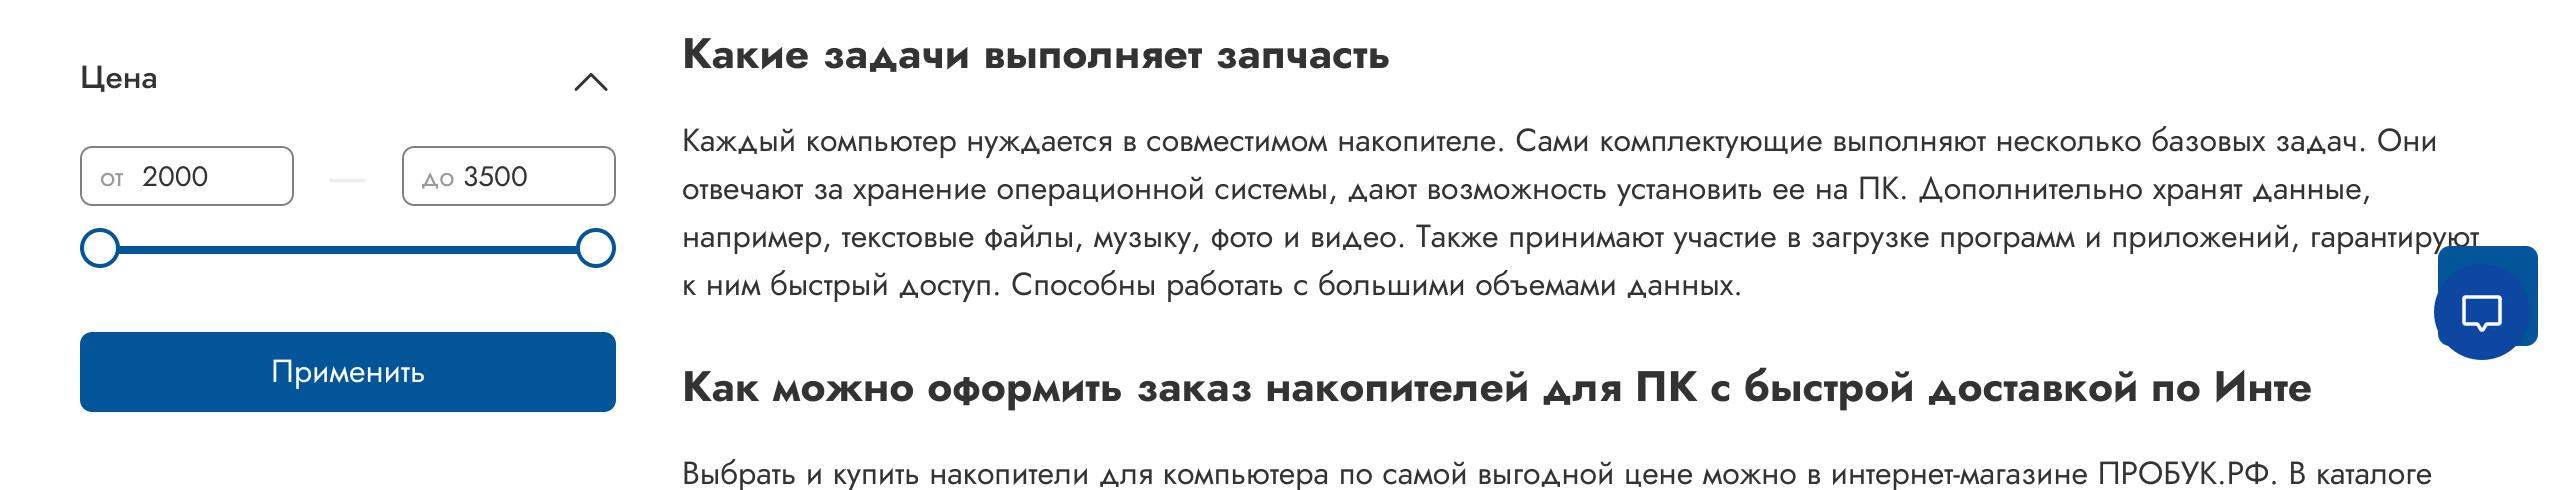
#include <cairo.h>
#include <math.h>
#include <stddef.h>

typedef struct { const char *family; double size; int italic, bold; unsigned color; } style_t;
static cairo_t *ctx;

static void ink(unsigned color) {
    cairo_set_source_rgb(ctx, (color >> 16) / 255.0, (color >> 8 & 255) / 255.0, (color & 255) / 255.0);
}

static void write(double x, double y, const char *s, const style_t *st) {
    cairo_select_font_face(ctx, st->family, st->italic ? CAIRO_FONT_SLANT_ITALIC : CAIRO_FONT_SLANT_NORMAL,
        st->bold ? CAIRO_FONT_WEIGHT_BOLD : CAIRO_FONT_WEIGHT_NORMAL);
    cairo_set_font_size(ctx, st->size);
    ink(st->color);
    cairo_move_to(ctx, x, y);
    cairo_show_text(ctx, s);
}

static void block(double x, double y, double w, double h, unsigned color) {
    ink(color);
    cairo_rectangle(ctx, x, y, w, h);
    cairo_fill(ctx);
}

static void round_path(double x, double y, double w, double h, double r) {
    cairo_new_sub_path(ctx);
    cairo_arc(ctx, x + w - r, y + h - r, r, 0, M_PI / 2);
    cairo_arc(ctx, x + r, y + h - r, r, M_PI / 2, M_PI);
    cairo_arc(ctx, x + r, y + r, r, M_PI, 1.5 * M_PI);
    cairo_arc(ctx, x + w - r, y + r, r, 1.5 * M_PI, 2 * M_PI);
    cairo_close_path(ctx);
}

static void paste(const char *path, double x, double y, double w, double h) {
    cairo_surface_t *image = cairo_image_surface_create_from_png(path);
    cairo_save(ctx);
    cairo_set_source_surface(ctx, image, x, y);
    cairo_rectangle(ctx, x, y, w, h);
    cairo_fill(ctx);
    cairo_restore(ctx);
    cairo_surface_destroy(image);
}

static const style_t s1 = {"Jost Medium", 32, 0, 0, 0x333333};
static const style_t s2 = {"Jost", 28, 0, 0, 0x999999};
static const style_t s3 = {"Jost", 28, 0, 0, 0x333333};
static const style_t s4 = {"Jost", 48, 0, 0, 0xededed};
static const style_t s5 = {"Jost", 32, 0, 0, 0xffffff};
static const style_t s6 = {"Jost", 42.65, 0, 1, 0x333333};
static const style_t s7 = {"Jost", 32, 0, 0, 0x333333};

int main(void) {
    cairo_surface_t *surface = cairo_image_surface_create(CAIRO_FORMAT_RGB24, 2569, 490);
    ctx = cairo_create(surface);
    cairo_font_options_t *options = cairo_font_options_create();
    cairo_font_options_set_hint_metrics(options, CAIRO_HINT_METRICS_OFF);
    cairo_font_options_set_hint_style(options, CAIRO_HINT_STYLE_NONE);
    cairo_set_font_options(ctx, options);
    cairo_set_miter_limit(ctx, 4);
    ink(0xffffff);
    cairo_paint(ctx);
    write(80, 88, "Цена", &s1);
    paste("pic1.png", 574, 73, 34, 18);
    round_path(81, 147, 212, 58, 11);
    ink(0x808080);
    cairo_stroke(ctx);
    write(100, 186, "от", &s2);
    write(142, 186, "2000", &s3);
    write(326, 192, "—", &s4);
    round_path(403, 147, 212, 58, 11);
    ink(0x808080);
    cairo_stroke(ctx);
    write(421, 186, "до", &s2);
    write(463, 186, "3500", &s3);
    block(119, 246, 458, 8, 0x015598);
    ink(0xffffff);
    cairo_new_path(ctx);
    cairo_arc(ctx, 100, 248, 18, 0, 2 * M_PI);
    cairo_fill_preserve(ctx);
    ink(0x015598);
    cairo_set_line_width(ctx, 4);
    cairo_stroke(ctx);
    ink(0xffffff);
    cairo_arc(ctx, 596, 248, 18, 0, 2 * M_PI);
    cairo_fill_preserve(ctx);
    ink(0x015598);
    cairo_stroke(ctx);
    round_path(80, 332, 536, 80, 12);
    cairo_fill(ctx);
    write(271, 382, "Применить", &s5);
    write(682, 68, "Какие задачи выполняет запчасть", &s6);
    write(682, 151, "Каждый компьютер нуждается в совместимом накопителе. Сами комплектующие выполняют несколько базовых задач. Они", &s7);
    write(682, 199, "отвечают за хранение операционной системы, дают возможность установить ее на ПК. Дополнительно хранят данные,", &s7);
    write(682, 247, "например, текстовые файлы, музыку, фото и видео. Также принимают участие в загрузке программ и приложений, гарантируют", &s7);
    write(682, 295, "к ним быстрый доступ. Способны работать с большими объемами данных.", &s7);
    write(682, 401, "Как можно оформить заказ накопителей для ПК с быстрой доставкой по Инте", &s6);
    write(682, 484, "Выбрать и купить накопители для компьютера по самой выгодной цене можно в интернет-магазине ПРОБУК.РФ. В каталоге", &s7);
    ink(0x015598);
    round_path(2439, 247, 98, 98, 11);
    cairo_fill_preserve(ctx);
    cairo_set_line_width(ctx, 2);
    cairo_stroke(ctx);
    ink(0x0d47a1);
    cairo_arc(ctx, 2482, 312, 48, 0, 2 * M_PI);
    cairo_fill(ctx);
    paste("pic2.png", 2462, 295, 40, 37);
    cairo_surface_write_to_png(surface, "screenshot.png");
    cairo_font_options_destroy(options);
    cairo_destroy(ctx);
    cairo_surface_destroy(surface);
    return 0;
}
